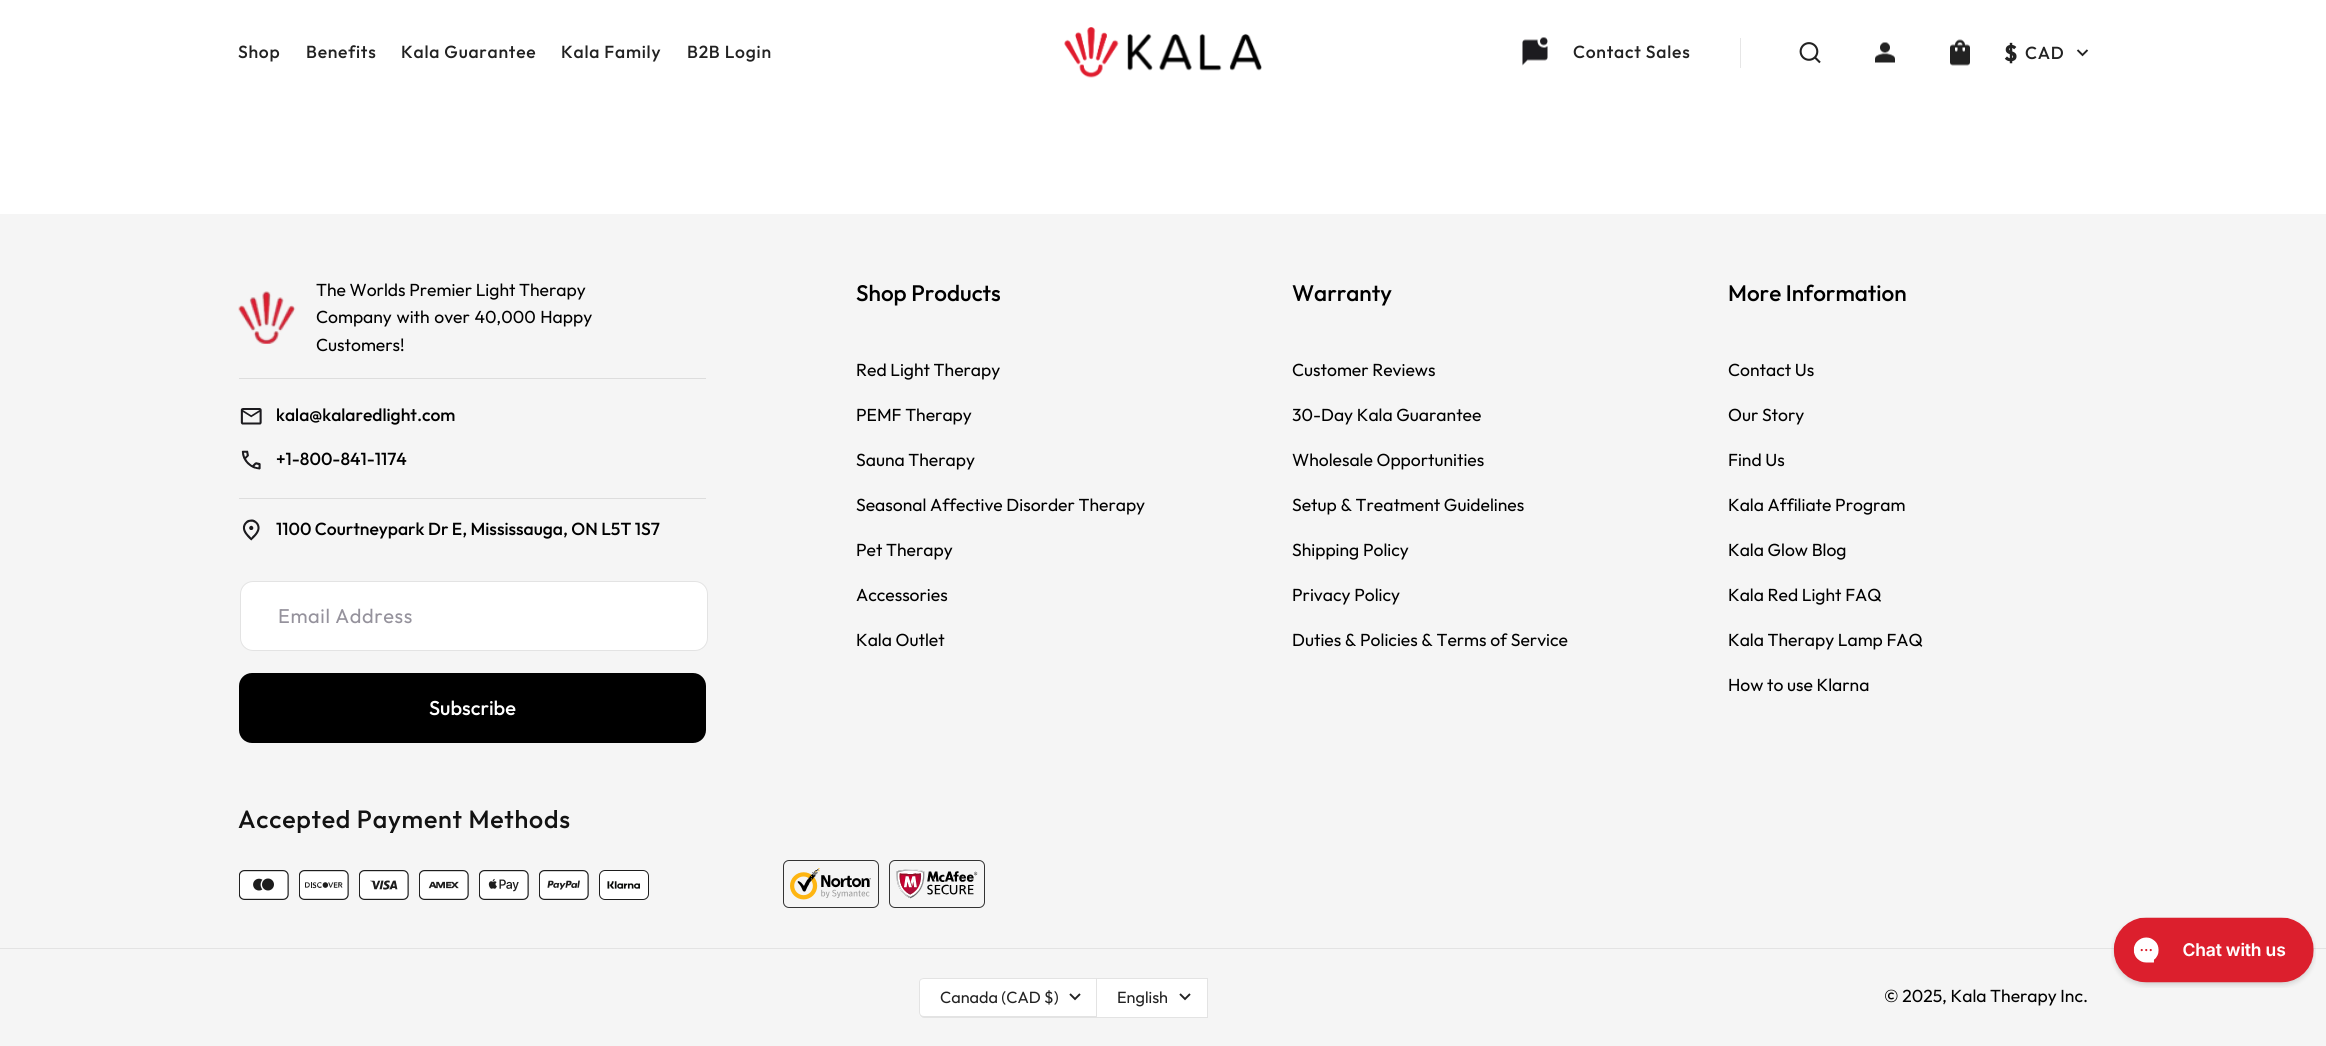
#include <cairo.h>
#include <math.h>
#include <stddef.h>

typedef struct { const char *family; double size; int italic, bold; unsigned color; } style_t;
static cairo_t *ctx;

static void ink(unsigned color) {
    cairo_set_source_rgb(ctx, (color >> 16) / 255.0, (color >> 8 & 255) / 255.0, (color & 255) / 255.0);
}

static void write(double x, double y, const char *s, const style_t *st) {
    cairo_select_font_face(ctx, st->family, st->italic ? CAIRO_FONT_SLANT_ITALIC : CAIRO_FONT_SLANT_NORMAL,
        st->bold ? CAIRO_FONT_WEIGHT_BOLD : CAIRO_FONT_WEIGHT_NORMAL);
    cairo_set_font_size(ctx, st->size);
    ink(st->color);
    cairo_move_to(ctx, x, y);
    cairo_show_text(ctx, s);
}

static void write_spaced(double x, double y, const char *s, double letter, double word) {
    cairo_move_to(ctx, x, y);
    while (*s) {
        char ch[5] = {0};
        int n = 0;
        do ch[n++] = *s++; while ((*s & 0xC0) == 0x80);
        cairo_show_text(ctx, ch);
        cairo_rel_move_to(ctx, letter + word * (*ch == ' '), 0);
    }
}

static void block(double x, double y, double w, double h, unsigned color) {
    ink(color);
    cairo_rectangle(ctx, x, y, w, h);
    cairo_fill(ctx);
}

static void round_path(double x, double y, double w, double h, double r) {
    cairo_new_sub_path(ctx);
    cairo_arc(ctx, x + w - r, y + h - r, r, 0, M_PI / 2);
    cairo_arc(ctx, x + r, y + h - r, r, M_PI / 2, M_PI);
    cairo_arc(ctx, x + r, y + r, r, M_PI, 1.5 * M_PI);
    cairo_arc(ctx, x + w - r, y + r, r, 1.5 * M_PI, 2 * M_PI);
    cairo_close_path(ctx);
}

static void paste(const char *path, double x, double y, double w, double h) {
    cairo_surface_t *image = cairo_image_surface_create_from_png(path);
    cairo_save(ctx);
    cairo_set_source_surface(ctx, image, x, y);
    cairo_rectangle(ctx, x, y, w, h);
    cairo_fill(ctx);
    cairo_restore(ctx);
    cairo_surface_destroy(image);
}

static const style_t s1 = {"Outfit", 17.5, 0, 0, 0x000000};
static const style_t s2 = {"Outfit Medium", 17.5, 0, 0, 0x000000};
static const style_t s3 = {"Outfit Medium", 20, 0, 0, 0xffffff};
static const style_t s4 = {"Outfit Medium", 22.5, 0, 0, 0x000000};
static const style_t s5 = {"Outfit", 16.25, 0, 0, 0x222222};

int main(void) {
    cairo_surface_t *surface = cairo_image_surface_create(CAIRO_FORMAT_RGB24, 2326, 1046);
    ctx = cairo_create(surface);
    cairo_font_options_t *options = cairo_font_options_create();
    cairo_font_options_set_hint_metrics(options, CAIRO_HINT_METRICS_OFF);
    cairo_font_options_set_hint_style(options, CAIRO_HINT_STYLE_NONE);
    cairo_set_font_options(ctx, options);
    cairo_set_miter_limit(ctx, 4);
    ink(0xffffff);
    cairo_paint(ctx);
    cairo_select_font_face(ctx, "Outfit Medium", CAIRO_FONT_SLANT_NORMAL, CAIRO_FONT_WEIGHT_NORMAL);
    cairo_set_font_size(ctx, 17.5);
    ink(0x222222);
    write_spaced(238, 58, "Shop", 0.75, 0);
    write_spaced(306, 58, "Benefits", 0.75, 0);
    write_spaced(401, 58, "Kala Guarantee", 0.75, 0);
    write_spaced(561, 58, "Kala Family", 0.75, 0);
    write_spaced(687, 58, "B2B Login", 0.75, 0);
    paste("pic1.png", 1064, 27, 198, 51);
    block(1740, 38, 1, 30, 0xe6e6e6);
    paste("pic2.png", 1522, 37, 26, 29);
    ink(0x222222);
    write_spaced(1573, 58, "Contact Sales", 0.75, 0);
    paste("pic3.png", 1799, 42, 22, 22);
    paste("pic4.png", 1875, 42, 20, 21);
    paste("pic5.png", 1950, 39, 20, 27);
    cairo_select_font_face(ctx, "Outfit", CAIRO_FONT_SLANT_NORMAL, CAIRO_FONT_WEIGHT_BOLD);
    cairo_set_font_size(ctx, 22.5);
    write_spaced(2004, 61, "$", 0.75, 0);
    cairo_select_font_face(ctx, "Outfit Medium", CAIRO_FONT_SLANT_NORMAL, CAIRO_FONT_WEIGHT_NORMAL);
    cairo_set_font_size(ctx, 17.5);
    write_spaced(2025, 59, "CAD", 0.75, 0);
    cairo_new_path(ctx);
    cairo_move_to(ctx, 2077.5, 50);
    cairo_line_to(ctx, 2082.5, 55);
    cairo_line_to(ctx, 2087.5, 50);
    cairo_set_line_width(ctx, 1.9);
    cairo_stroke(ctx);
    block(0, 214, 2326, 832, 0xf5f5f5);
    block(239, 378, 467, 1, 0xdddddd);
    paste("pic6.png", 238, 291, 58, 53);
    write(316, 296, "The Worlds Premier Light Therapy", &s1);
    write_spaced(316, 323, "Company with over 40,000 Happy", 0, 1);
    write(316, 351, "Customers!", &s1);
    paste("pic7.png", 240, 408, 22, 17);
    write(276, 421, "kala@kalaredlight.com", &s2);
    paste("pic8.png", 241, 450, 20, 20);
    write(276, 465, "+1-800-841-1174", &s2);
    block(239, 498, 467, 1, 0xdddddd);
    paste("pic9.png", 242, 519, 18, 22);
    write(276, 535, "1100 Courtneypark Dr E, Mississauga, ON L5T 1S7", &s2);
    ink(0xffffff);
    round_path(240.5, 581.5, 467, 69, 12.5);
    cairo_fill_preserve(ctx);
    ink(0xe3e3e3);
    cairo_set_line_width(ctx, 1);
    cairo_stroke(ctx);
    cairo_select_font_face(ctx, "Outfit", CAIRO_FONT_SLANT_NORMAL, CAIRO_FONT_WEIGHT_NORMAL);
    cairo_set_font_size(ctx, 20);
    ink(0x95929c);
    write_spaced(278, 623, "Email Address", 0.6, 0);
    ink(0x000000);
    round_path(239, 673, 467, 70, 13);
    cairo_fill(ctx);
    write(429, 715, "Subscribe", &s3);
    write(856, 301, "Shop Products", &s4);
    write(856, 376, "Red Light Therapy", &s1);
    write(856, 421, "PEMF Therapy", &s1);
    write(856, 466, "Sauna Therapy", &s1);
    write(856, 511, "Seasonal Affective Disorder Therapy", &s1);
    write(856, 556, "Pet Therapy", &s1);
    write(856, 601, "Accessories", &s1);
    write(856, 646, "Kala Outlet", &s1);
    write(1292, 301, "Warranty", &s4);
    write(1292, 376, "Customer Reviews", &s1);
    write(1292, 421, "30-Day Kala Guarantee", &s1);
    write(1292, 466, "Wholesale Opportunities", &s1);
    write(1292, 511, "Setup & Treatment Guidelines", &s1);
    write(1292, 556, "Shipping Policy", &s1);
    write(1292, 601, "Privacy Policy", &s1);
    write(1292, 646, "Duties & Policies & Terms of Service", &s1);
    write(1728, 301, "More Information", &s4);
    write(1728, 376, "Contact Us", &s1);
    write(1728, 421, "Our Story", &s1);
    write(1728, 466, "Find Us", &s1);
    write(1728, 511, "Kala Affiliate Program", &s1);
    write(1728, 556, "Kala Glow Blog", &s1);
    write(1728, 601, "Kala Red Light FAQ", &s1);
    write(1728, 646, "Kala Therapy Lamp FAQ", &s1);
    write(1728, 691, "How to use Klarna", &s1);
    cairo_select_font_face(ctx, "Outfit Medium", CAIRO_FONT_SLANT_NORMAL, CAIRO_FONT_WEIGHT_NORMAL);
    cairo_set_font_size(ctx, 25);
    ink(0x121212);
    write_spaced(238, 828, "Accepted Payment Methods", 0.75, 0);
    paste("pic10.png", 239, 870, 50, 30);
    paste("pic11.png", 299, 870, 50, 30);
    paste("pic12.png", 359, 870, 50, 30);
    paste("pic13.png", 419, 870, 50, 30);
    paste("pic14.png", 479, 870, 50, 30);
    paste("pic15.png", 539, 870, 50, 30);
    paste("pic16.png", 599, 870, 50, 30);
    round_path(783.5, 860.5, 95, 47, 5.5);
    ink(0x333333);
    cairo_stroke(ctx);
    paste("pic17.png", 790, 868, 81, 32);
    round_path(889.5, 860.5, 95, 47, 5.5);
    cairo_stroke(ctx);
    paste("pic18.png", 896, 869, 82, 30);
    block(0, 948, 2326, 1, 0xe3e3e3);
    ink(0xffffff);
    cairo_new_path(ctx);
    cairo_move_to(ctx, 924, 978);
    cairo_line_to(ctx, 1096, 978);
    cairo_line_to(ctx, 1096, 1018);
    cairo_line_to(ctx, 924, 1018);
    cairo_curve_to(ctx, 921, 1018, 919, 1016, 919, 1013);
    cairo_line_to(ctx, 919, 983);
    cairo_curve_to(ctx, 919, 980, 921, 978, 924, 978);
    cairo_close_path(ctx);
    cairo_fill(ctx);
    ink(0xe3e3e3);
    cairo_set_fill_rule(ctx, CAIRO_FILL_RULE_EVEN_ODD);
    cairo_new_path(ctx);
    cairo_move_to(ctx, 924, 978);
    cairo_line_to(ctx, 1096, 978);
    cairo_line_to(ctx, 1096, 1018);
    cairo_line_to(ctx, 924, 1018);
    cairo_curve_to(ctx, 921, 1018, 919, 1015, 919, 1012);
    cairo_line_to(ctx, 919, 982);
    cairo_curve_to(ctx, 919, 980, 921, 978, 924, 978);
    cairo_close_path(ctx);
    cairo_move_to(ctx, 924, 979);
    cairo_line_to(ctx, 1096, 979);
    cairo_line_to(ctx, 1096, 1016);
    cairo_line_to(ctx, 924, 1016);
    cairo_curve_to(ctx, 922, 1016, 920, 1015, 920, 1012);
    cairo_line_to(ctx, 920, 982);
    cairo_curve_to(ctx, 920, 980, 922, 979, 924, 979);
    cairo_close_path(ctx);
    cairo_fill(ctx);
    write(940, 1003, "Canada (CAD $)", &s5);
    cairo_new_path(ctx);
    cairo_move_to(ctx, 1070, 994);
    cairo_line_to(ctx, 1075, 999);
    cairo_line_to(ctx, 1080, 994);
    cairo_set_line_width(ctx, 1.9);
    cairo_stroke(ctx);
    ink(0xffffff);
    cairo_rectangle(ctx, 1096.5, 978.5, 111, 39);
    cairo_fill_preserve(ctx);
    ink(0xe3e3e3);
    cairo_set_line_width(ctx, 1);
    cairo_stroke(ctx);
    write(1117, 1003, "English", &s5);
    cairo_new_path(ctx);
    cairo_move_to(ctx, 1180, 994);
    cairo_line_to(ctx, 1185, 999);
    cairo_line_to(ctx, 1190, 994);
    cairo_set_line_width(ctx, 1.9);
    cairo_stroke(ctx);
    write(1884, 1002, "© 2025, Kala Therapy Inc.", &s1);
    paste("pic19.png", 2111, 917, 205, 71);
    cairo_surface_write_to_png(surface, "screenshot.png");
    cairo_font_options_destroy(options);
    cairo_destroy(ctx);
    cairo_surface_destroy(surface);
    return 0;
}
